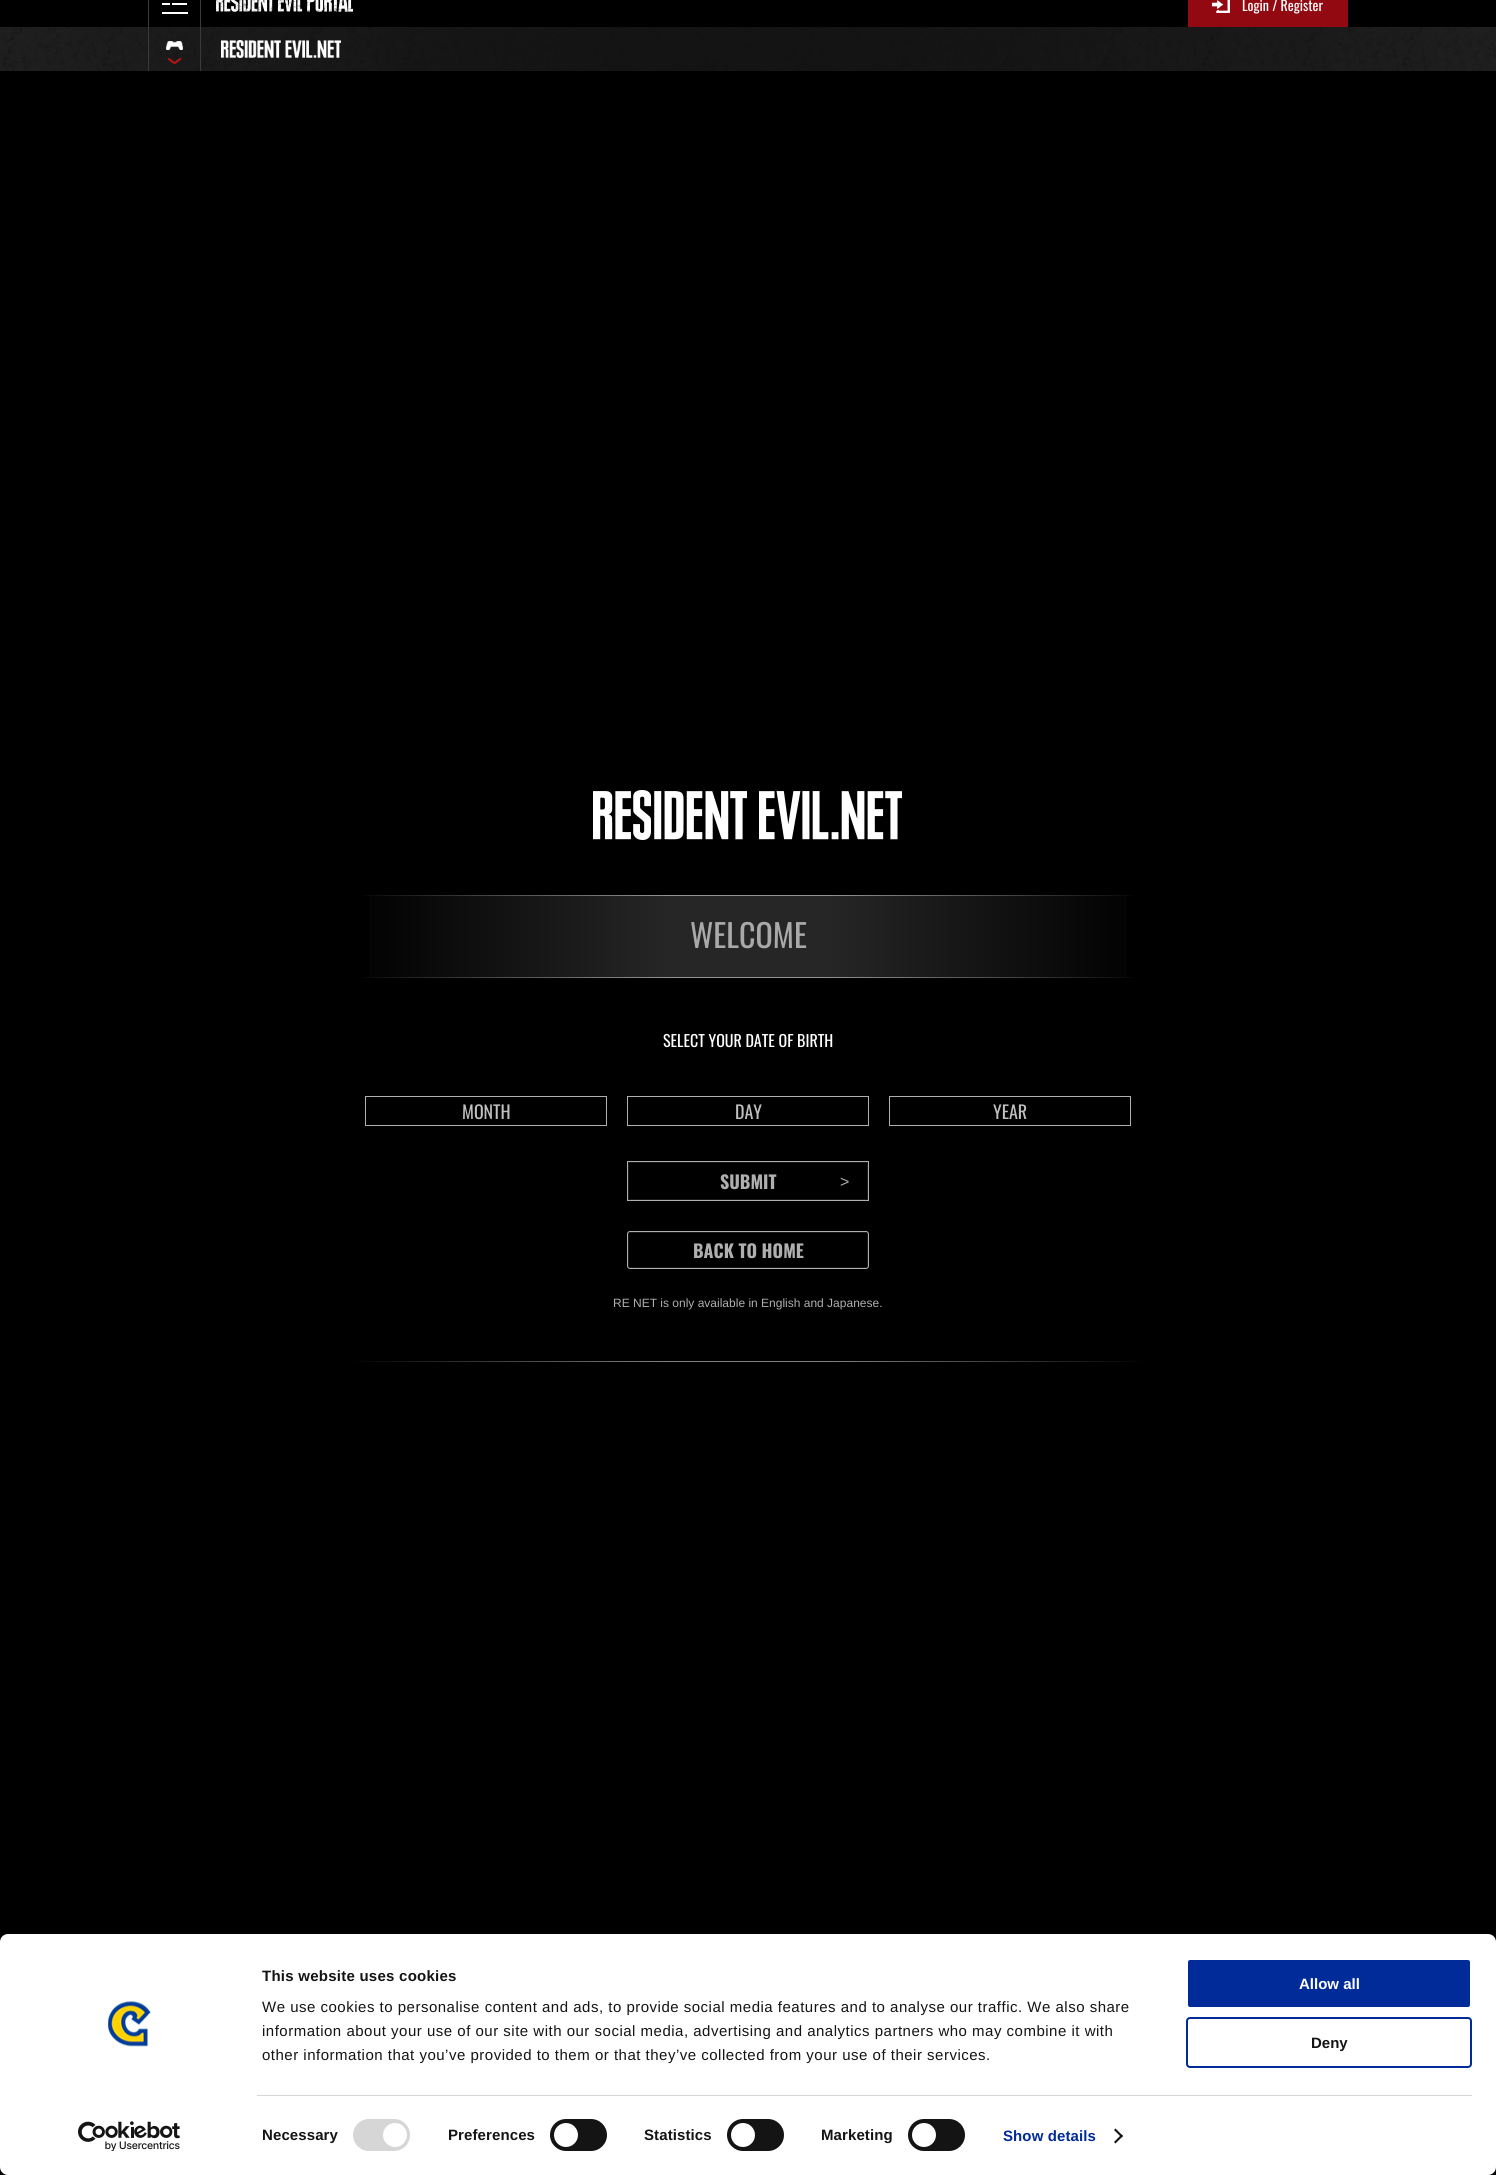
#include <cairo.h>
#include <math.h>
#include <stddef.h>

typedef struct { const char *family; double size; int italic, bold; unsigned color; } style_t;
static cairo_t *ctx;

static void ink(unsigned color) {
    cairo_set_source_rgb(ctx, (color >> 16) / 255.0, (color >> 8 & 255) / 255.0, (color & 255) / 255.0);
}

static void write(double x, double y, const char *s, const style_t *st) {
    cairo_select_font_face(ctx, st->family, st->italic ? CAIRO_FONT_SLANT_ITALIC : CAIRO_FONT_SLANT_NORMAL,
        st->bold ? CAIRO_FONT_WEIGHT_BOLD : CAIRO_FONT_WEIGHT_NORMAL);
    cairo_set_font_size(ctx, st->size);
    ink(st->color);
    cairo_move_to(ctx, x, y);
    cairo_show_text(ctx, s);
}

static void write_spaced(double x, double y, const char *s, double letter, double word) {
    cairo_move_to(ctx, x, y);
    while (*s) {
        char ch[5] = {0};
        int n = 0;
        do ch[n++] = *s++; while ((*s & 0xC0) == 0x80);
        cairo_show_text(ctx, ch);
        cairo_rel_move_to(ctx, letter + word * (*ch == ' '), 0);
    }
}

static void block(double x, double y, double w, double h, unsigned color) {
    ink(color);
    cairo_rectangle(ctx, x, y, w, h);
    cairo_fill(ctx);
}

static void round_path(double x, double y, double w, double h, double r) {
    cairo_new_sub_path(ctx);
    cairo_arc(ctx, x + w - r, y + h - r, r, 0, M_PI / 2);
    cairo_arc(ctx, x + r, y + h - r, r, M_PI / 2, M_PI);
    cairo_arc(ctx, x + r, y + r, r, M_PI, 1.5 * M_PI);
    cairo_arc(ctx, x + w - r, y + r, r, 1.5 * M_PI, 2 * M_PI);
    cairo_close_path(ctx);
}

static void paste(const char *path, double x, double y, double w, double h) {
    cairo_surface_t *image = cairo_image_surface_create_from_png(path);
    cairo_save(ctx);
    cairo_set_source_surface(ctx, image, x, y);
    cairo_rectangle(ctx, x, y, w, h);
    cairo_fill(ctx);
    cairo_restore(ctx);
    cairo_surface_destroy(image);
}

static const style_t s1 = {"Oswald", 14, 0, 0, 0xffffff};
static const style_t s2 = {"Oswald", 32, 0, 0, 0xa9a9a9};
static const style_t s3 = {"Oswald", 16, 0, 0, 0xffffff};
static const style_t s4 = {"Oswald", 18, 0, 0, 0xc0c0c0};
static const style_t s5 = {"Oswald", 18, 0, 1, 0xafafaf};
static const style_t s6 = {"Liberation Sans", 16, 0, 0, 0xafafaf};
static const style_t s7 = {"Liberation Sans", 12, 0, 0, 0xafafaf};
static const style_t s8 = {"Liberation Sans", 15, 0, 1, 0xffffff};
static const style_t s9 = {"Liberation Sans", 15, 0, 1, 0x141414};

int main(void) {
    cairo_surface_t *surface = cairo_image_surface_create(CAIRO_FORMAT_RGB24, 1496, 2175);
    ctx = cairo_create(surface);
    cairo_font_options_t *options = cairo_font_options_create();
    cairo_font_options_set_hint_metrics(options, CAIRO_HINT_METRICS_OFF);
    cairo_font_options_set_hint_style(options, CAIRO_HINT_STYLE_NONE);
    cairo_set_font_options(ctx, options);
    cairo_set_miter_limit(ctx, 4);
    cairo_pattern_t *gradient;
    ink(0x000000);
    cairo_paint(ctx);
    block(200, 0, 1, 27, 0x3a3a3a);
    block(148, 0, 1, 27, 0x3a3a3a);
    block(162, 3, 8, 2, 0xffffff);
    block(172, 3, 15, 2, 0xffffff);
    block(162, 12, 26, 2, 0xffffff);
    paste("pic1.png", 216, 0, 137, 12);
    block(1188, 0, 160, 27, 0x930912);
    paste("pic2.png", 1212, 0, 18, 13);
    write(1242, 11, "Login / Register", &s1);
    paste("pic3.png", 0, 27, 1496, 44);
    block(148, 27, 1, 44, 0x3a3a3a);
    paste("pic4.png", 166, 41, 17, 23);
    block(200, 27, 1, 44, 0x3a3a3a);
    paste("pic5.png", 221, 40, 120, 18);
    paste("pic6.png", 593, 790, 309, 50);
    gradient = cairo_pattern_create_linear(348, 937, 1148, 937);
    cairo_pattern_add_color_stop_rgba(gradient, 0, 0, 0, 0, 1);
    cairo_pattern_add_color_stop_rgba(gradient, 0.4, 0.149, 0.149, 0.149, 1);
    cairo_pattern_add_color_stop_rgba(gradient, 0.6, 0.149, 0.149, 0.149, 1);
    cairo_pattern_add_color_stop_rgba(gradient, 1, 0, 0, 0, 1);
    cairo_set_source(ctx, gradient);
    cairo_pattern_destroy(gradient);
    cairo_rectangle(ctx, 369, 895, 758, 83);
    cairo_fill(ctx);
    gradient = cairo_pattern_create_linear(348, 896, 1148, 896);
    cairo_pattern_add_color_stop_rgba(gradient, 0, 1, 1, 1, 0);
    cairo_pattern_add_color_stop_rgba(gradient, 0.4, 1, 1, 1, 0.5);
    cairo_pattern_add_color_stop_rgba(gradient, 0.6, 1, 1, 1, 0.5);
    cairo_pattern_add_color_stop_rgba(gradient, 1, 1, 1, 1, 0);
    cairo_set_source(ctx, gradient);
    cairo_pattern_destroy(gradient);
    cairo_rectangle(ctx, 362, 895, 772, 1);
    cairo_fill(ctx);
    write(690, 948, "WELCOME", &s2);
    gradient = cairo_pattern_create_linear(348, 978, 1148, 978);
    cairo_pattern_add_color_stop_rgba(gradient, 0, 1, 1, 1, 0);
    cairo_pattern_add_color_stop_rgba(gradient, 0.4, 1, 1, 1, 0.5);
    cairo_pattern_add_color_stop_rgba(gradient, 0.6, 1, 1, 1, 0.5);
    cairo_pattern_add_color_stop_rgba(gradient, 1, 1, 1, 1, 0);
    cairo_set_source(ctx, gradient);
    cairo_pattern_destroy(gradient);
    cairo_rectangle(ctx, 362, 977, 772, 1);
    cairo_fill(ctx);
    write(663, 1047, "SELECT YOUR DATE OF BIRTH", &s3);
    cairo_rectangle(ctx, 365.5, 1096.5, 241, 29);
    ink(0xafafaf);
    cairo_set_line_width(ctx, 1);
    cairo_stroke(ctx);
    write(462, 1119, "MONTH", &s4);
    cairo_rectangle(ctx, 627.5, 1096.5, 241, 29);
    ink(0xafafaf);
    cairo_stroke(ctx);
    write(735, 1119, "DAY", &s4);
    cairo_rectangle(ctx, 889.5, 1096.5, 241, 29);
    ink(0xafafaf);
    cairo_stroke(ctx);
    write(993, 1119, "YEAR", &s4);
    cairo_rectangle(ctx, 628.5, 1162.5, 239, 37);
    ink(0x1a1a1a);
    cairo_stroke(ctx);
    cairo_rectangle(ctx, 627.5, 1161.5, 241, 39);
    ink(0xafafaf);
    cairo_stroke(ctx);
    write(720, 1189, "SUBMIT", &s5);
    write(840, 1187, ">", &s6);
    round_path(628.5, 1232.5, 239, 35, 1.5);
    ink(0x1a1a1a);
    cairo_stroke(ctx);
    round_path(627.5, 1231.5, 241, 37, 2.5);
    ink(0xafafaf);
    cairo_stroke(ctx);
    write(693, 1258, "BACK TO HOME", &s5);
    write(613, 1307, "RE NET is only available in English and Japanese.", &s7);
    gradient = cairo_pattern_create_linear(348, 1362, 1148, 1362);
    cairo_pattern_add_color_stop_rgba(gradient, 0, 0, 0, 0, 1);
    cairo_pattern_add_color_stop_rgba(gradient, 0.4, 0.502, 0.502, 0.502, 1);
    cairo_pattern_add_color_stop_rgba(gradient, 0.6, 0.502, 0.502, 0.502, 1);
    cairo_pattern_add_color_stop_rgba(gradient, 1, 0, 0, 0, 1);
    cairo_set_source(ctx, gradient);
    cairo_pattern_destroy(gradient);
    cairo_rectangle(ctx, 348, 1361, 800, 1);
    cairo_fill(ctx);
    ink(0xffffff);
    round_path(0, 1934, 1496, 241, 8);
    cairo_fill(ctx);
    paste("pic7.png", 108, 2001, 43, 46);
    paste("pic8.png", 78, 2121, 102, 30);
    cairo_select_font_face(ctx, "Liberation Sans", CAIRO_FONT_SLANT_NORMAL, CAIRO_FONT_WEIGHT_BOLD);
    cairo_set_font_size(ctx, 15);
    ink(0x141414);
    write_spaced(262, 1981, "This website uses cookies", 0.25, 0);
    cairo_select_font_face(ctx, "Liberation Sans", CAIRO_FONT_SLANT_NORMAL, CAIRO_FONT_WEIGHT_NORMAL);
    write_spaced(262, 2012, "We use cookies to personalise content and ads, to provide social media features and to analyse our traffic. We also share", 0.5, 0);
    write_spaced(262, 2036, "information about your use of our site with our social media, advertising and analytics partners who may combine it with", 0.5, 0);
    write_spaced(262, 2060, "other information that you’ve provided to them or that they’ve collected from your use of their services.", 0.5, 0);
    block(257, 2095, 1215, 1, 0xd6d6d6);
    cairo_select_font_face(ctx, "Liberation Sans", CAIRO_FONT_SLANT_NORMAL, CAIRO_FONT_WEIGHT_BOLD);
    ink(0x141414);
    write_spaced(262, 2140, "Necessary", 0.1, 0);
    ink(0xd6d6d6);
    round_path(353, 2119, 57, 32, 16);
    cairo_fill(ctx);
    ink(0xffffff);
    cairo_arc(ctx, 395, 2135, 12, 0, 2 * M_PI);
    cairo_fill(ctx);
    ink(0x141414);
    write_spaced(448, 2140, "Preferences", 0.1, 0);
    round_path(550, 2119, 57, 32, 16);
    cairo_fill(ctx);
    ink(0xffffff);
    cairo_arc(ctx, 566, 2135, 12, 0, 2 * M_PI);
    cairo_fill(ctx);
    ink(0x141414);
    write_spaced(644, 2140, "Statistics", 0.1, 0);
    round_path(727, 2119, 57, 32, 16);
    cairo_fill(ctx);
    ink(0xffffff);
    cairo_arc(ctx, 743, 2135, 12, 0, 2 * M_PI);
    cairo_fill(ctx);
    ink(0x141414);
    write_spaced(821, 2140, "Marketing", 0.1, 0);
    round_path(908, 2119, 57, 32, 16);
    cairo_fill(ctx);
    ink(0xffffff);
    cairo_arc(ctx, 924, 2135, 12, 0, 2 * M_PI);
    cairo_fill(ctx);
    ink(0x002b98);
    write_spaced(1003, 2141, "Show details", 0.1, 0);
    ink(0x141414);
    cairo_new_path(ctx);
    cairo_move_to(ctx, 1115.5, 2128.5);
    cairo_line_to(ctx, 1123, 2136);
    cairo_line_to(ctx, 1121.5, 2137.5);
    cairo_line_to(ctx, 1114, 2130);
    cairo_close_path(ctx);
    cairo_fill(ctx);
    cairo_new_path(ctx);
    cairo_move_to(ctx, 1121.5, 2134.5);
    cairo_line_to(ctx, 1123, 2136);
    cairo_line_to(ctx, 1115.5, 2143.5);
    cairo_line_to(ctx, 1114, 2142);
    cairo_close_path(ctx);
    cairo_fill(ctx);
    ink(0x002b98);
    round_path(1187, 1959, 284, 49, 3);
    cairo_fill_preserve(ctx);
    ink(0xffffff);
    cairo_set_line_width(ctx, 2);
    cairo_stroke(ctx);
    write(1299, 1989, "Allow all", &s8);
    round_path(1187, 2018, 284, 49, 3);
    ink(0x002b98);
    cairo_stroke(ctx);
    write(1311, 2048, "Deny", &s9);
    cairo_surface_write_to_png(surface, "screenshot.png");
    cairo_font_options_destroy(options);
    cairo_destroy(ctx);
    cairo_surface_destroy(surface);
    return 0;
}
